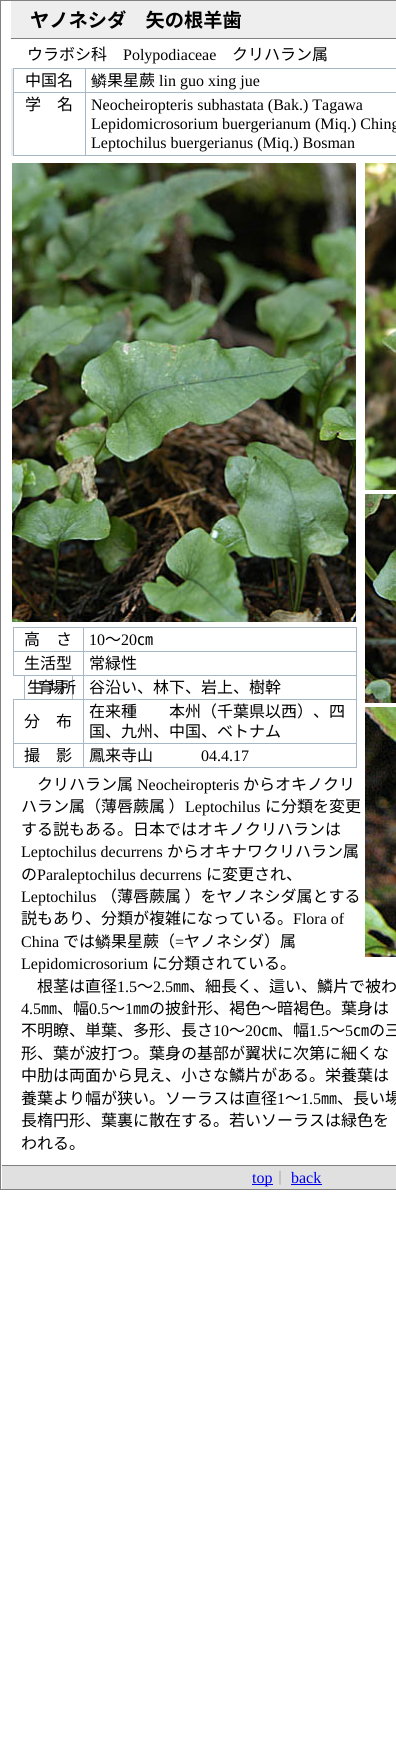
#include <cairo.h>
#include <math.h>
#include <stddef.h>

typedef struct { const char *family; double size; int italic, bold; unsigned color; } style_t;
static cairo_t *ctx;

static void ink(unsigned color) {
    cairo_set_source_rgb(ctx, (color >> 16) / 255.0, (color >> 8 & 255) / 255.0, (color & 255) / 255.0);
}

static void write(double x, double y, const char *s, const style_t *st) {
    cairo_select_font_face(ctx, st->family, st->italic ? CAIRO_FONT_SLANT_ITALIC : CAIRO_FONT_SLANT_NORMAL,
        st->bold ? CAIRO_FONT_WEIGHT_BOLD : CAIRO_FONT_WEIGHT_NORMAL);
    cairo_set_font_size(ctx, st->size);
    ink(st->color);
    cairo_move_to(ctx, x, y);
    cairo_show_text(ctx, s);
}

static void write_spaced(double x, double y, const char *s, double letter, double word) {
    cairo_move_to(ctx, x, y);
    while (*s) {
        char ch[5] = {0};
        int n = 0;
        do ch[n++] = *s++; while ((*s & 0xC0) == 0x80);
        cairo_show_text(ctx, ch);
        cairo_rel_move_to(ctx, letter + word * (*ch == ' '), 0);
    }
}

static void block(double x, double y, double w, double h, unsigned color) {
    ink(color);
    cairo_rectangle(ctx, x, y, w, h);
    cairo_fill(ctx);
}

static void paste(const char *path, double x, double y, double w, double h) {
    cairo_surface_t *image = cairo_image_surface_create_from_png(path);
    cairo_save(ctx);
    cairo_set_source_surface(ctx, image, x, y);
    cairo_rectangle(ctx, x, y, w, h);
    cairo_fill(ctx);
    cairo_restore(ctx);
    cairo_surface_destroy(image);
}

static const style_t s1 = {"Noto Sans JP", 19.25, 0, 1, 0x000000};
static const style_t s2 = {"Noto Sans JP", 16, 0, 0, 0x000000};
static const style_t s3 = {"Liberation Serif", 16, 0, 0, 0x000000};
static const style_t s4 = {"WenQuanYi Zen Hei Medium", 16, 0, 0, 0x000000};
static const style_t s5 = {"Liberation Serif", 16, 0, 0, 0x0000ee};
static const style_t s6 = {"Noto Sans JP", 14, 0, 0, 0x808080};

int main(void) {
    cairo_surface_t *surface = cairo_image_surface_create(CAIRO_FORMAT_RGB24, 396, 1745);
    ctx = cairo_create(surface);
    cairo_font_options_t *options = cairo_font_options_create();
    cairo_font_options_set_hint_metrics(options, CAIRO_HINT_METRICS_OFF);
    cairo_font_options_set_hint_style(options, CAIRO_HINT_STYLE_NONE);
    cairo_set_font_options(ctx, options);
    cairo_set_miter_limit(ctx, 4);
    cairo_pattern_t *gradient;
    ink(0xffffff);
    cairo_paint(ctx);
    cairo_rectangle(ctx, 0.5, 0.5, 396, 1189);
    ink(0x808080);
    cairo_set_line_width(ctx, 1);
    cairo_stroke(ctx);
    gradient = cairo_pattern_create_linear(11, 79, 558, 78);
    cairo_pattern_add_color_stop_rgba(gradient, 0, 0.933, 0.933, 0.933, 1);
    cairo_pattern_add_color_stop_rgba(gradient, 0.72, 0.933, 0.933, 0.933, 1);
    cairo_pattern_add_color_stop_rgba(gradient, 0.78, 1, 1, 1, 1);
    cairo_set_source(ctx, gradient);
    cairo_pattern_destroy(gradient);
    cairo_rectangle(ctx, 11, 1, 385, 155);
    cairo_fill(ctx);
    write(30, 27, "ヤノネシダ　矢の根羊歯", &s1);
    block(11, 39, 385, 29, 0xffffff);
    block(11, 38, 385, 1, 0x808080);
    write(27, 60, "ウラボシ科", &s2);
    write(123, 60, "Polypodiaceae", &s3);
    write(232, 60, "クリハラン属", &s2);
    block(14, 69, 382, 86, 0xffffff);
    block(85, 68, 311, 1, 0xa8b7c5);
    block(85, 92, 311, 1, 0xa8b7c5);
    block(85, 155, 311, 1, 0xa8b7c5);
    block(85, 92, 1, 64, 0xa8b7c5);
    block(13, 92, 73, 1, 0xa8b7c5);
    block(85, 68, 1, 25, 0xa8b7c5);
    block(13, 68, 73, 1, 0xa8b7c5);
    block(13, 155, 73, 1, 0xa8b7c5);
    block(13, 92, 1, 64, 0xa8b7c5);
    block(13, 68, 1, 25, 0xa8b7c5);
    write(25, 86, "中国名", &s2);
    write(91, 86, "鳞", &s4);
    write(107, 86, "果星蕨", &s2);
    write(159, 86, "lin guo xing jue", &s3);
    write(25, 110, "学　名", &s2);
    write(91, 110, "Neocheiropteris subhastata (Bak.) Tagawa", &s3);
    write(91, 129, "Lepidomicrosorium buergerianum (Miq.) Ching", &s3);
    write(91, 148, "Leptochilus buergerianus (Miq.) Bosman", &s3);
    paste("pic1.png", 12, 163, 344, 459);
    block(83, 627, 274, 1, 0xa8b7c5);
    block(83, 651, 274, 1, 0xa8b7c5);
    block(83, 675, 274, 1, 0xa8b7c5);
    block(83, 699, 274, 1, 0xa8b7c5);
    block(83, 743, 274, 1, 0xa8b7c5);
    block(356, 743, 1, 25, 0xa8b7c5);
    block(83, 767, 274, 1, 0xa8b7c5);
    block(83, 743, 1, 25, 0xa8b7c5);
    block(13, 743, 71, 1, 0xa8b7c5);
    block(83, 699, 1, 45, 0xa8b7c5);
    block(13, 699, 71, 1, 0xa8b7c5);
    block(83, 675, 1, 25, 0xa8b7c5);
    block(83, 651, 1, 25, 0xa8b7c5);
    block(13, 651, 71, 1, 0xa8b7c5);
    block(83, 627, 1, 25, 0xa8b7c5);
    block(13, 627, 71, 1, 0xa8b7c5);
    block(72, 675, 1, 25, 0xa8b7c5);
    block(24, 675, 1, 25, 0xa8b7c5);
    block(13, 675, 71, 1, 0xa8b7c5);
    block(13, 651, 1, 25, 0xa8b7c5);
    block(13, 627, 1, 25, 0xa8b7c5);
    write(24, 645, "高　さ", &s2);
    block(356, 699, 1, 45, 0xa8b7c5);
    block(356, 675, 1, 25, 0xa8b7c5);
    block(356, 651, 1, 25, 0xa8b7c5);
    block(356, 627, 1, 25, 0xa8b7c5);
    write(89, 645, "10", &s3);
    write(105, 645, "～", &s2);
    write(121, 645, "20", &s3);
    write(137, 645, "㎝", &s2);
    write(24, 669, "生活型", &s2);
    write(89, 669, "常緑性", &s2);
    write_spaced(27, 693, "生育場所", -5, 0);
    write(89, 693, "谷沿い、林下、岩上、樹幹", &s2);
    block(13, 767, 71, 1, 0xa8b7c5);
    block(13, 743, 1, 25, 0xa8b7c5);
    block(13, 699, 1, 45, 0xa8b7c5);
    write(24, 727, "分　布", &s2);
    write(89, 717, "在来種　　本州（千葉県以西）、四", &s2);
    write(89, 737, "国、九州、中国、ベトナム", &s2);
    write(24, 761, "撮　影", &s2);
    write(89, 761, "鳳来寺山", &s2);
    write(201, 761, "04.4.17", &s3);
    paste("pic2.png", 365, 163, 31, 327);
    paste("pic3.png", 365, 494, 31, 209);
    paste("pic4.png", 365, 707, 31, 250);
    write(37, 790, "クリハラン属", &s2);
    write(137, 790, "Neocheiropteris", &s3);
    write(243, 790, "からオキノクリ", &s2);
    write(21, 812, "ハラン属（薄唇蕨属 ）", &s2);
    write(185, 812, "Leptochilus", &s3);
    write(265, 812, "に分類を変更", &s2);
    write(21, 835, "する説もある。日本ではオキノクリハランは", &s2);
    write(21, 857, "Leptochilus decurrens", &s3);
    write(167, 857, "からオキナワクリハラン属", &s2);
    write(21, 880, "の", &s2);
    write(37, 880, "Paraleptochilus decurrens", &s3);
    write(206, 880, "に変更され、", &s2);
    write(21, 902, "Leptochilus", &s3);
    write(101, 902, "（薄唇蕨属 ）をヤノネシダ属とする", &s2);
    write(21, 924, "説もあり、分類が複雑になっている。", &s2);
    write(293, 924, "Flora of", &s3);
    write(21, 947, "China", &s3);
    write(63, 947, "では", &s2);
    write(95, 947, "鳞", &s4);
    write(111, 947, "果星蕨（", &s2);
    write(175, 947, "=", &s3);
    write(184, 947, "ヤノネシダ）属", &s2);
    write(21, 969, "Lepidomicrosorium", &s3);
    write(152, 969, "に分類されている。", &s2);
    write(37, 992, "根茎は直径", &s2);
    write(117, 992, "1.5", &s3);
    write(137, 992, "～", &s2);
    write(153, 992, "2.5", &s3);
    write(173, 992, "㎜、細長く、這い、鱗片で被わ", &s2);
    write(21, 1014, "4.5", &s3);
    write(41, 1014, "㎜、幅", &s2);
    write(89, 1014, "0.5", &s3);
    write(109, 1014, "～", &s2);
    write(125, 1014, "1", &s3);
    write(133, 1014, "㎜の披針形、褐色～暗褐色。葉身は", &s2);
    write(21, 1036, "不明瞭、単葉、多形、長さ", &s2);
    write(213, 1036, "10", &s3);
    write(229, 1036, "～", &s2);
    write(245, 1036, "20", &s3);
    write(261, 1036, "㎝、幅", &s2);
    write(309, 1036, "1.5", &s3);
    write(329, 1036, "～", &s2);
    write(345, 1036, "5", &s3);
    write(353, 1036, "㎝の三", &s2);
    write(21, 1059, "形、葉が波打つ。葉身の基部が翼状に次第に細くな", &s2);
    write(21, 1081, "中肋は両面から見え、小さな鱗片がある。栄養葉は", &s2);
    write(21, 1104, "養葉より幅が狭い。ソーラスは直径", &s2);
    write(277, 1104, "1", &s3);
    write(285, 1104, "～", &s2);
    write(301, 1104, "1.5", &s3);
    write(321, 1104, "㎜、長い場", &s2);
    write(21, 1126, "長楕円形、葉裏に散在する。若いソーラスは緑色を", &s2);
    write(21, 1149, "われる。", &s2);
    block(2, 1166, 394, 23, 0xe0e0e0);
    block(2, 1165, 394, 1, 0x808080);
    block(252, 1184, 21, 1, 0x0000ee);
    write(252, 1183, "top", &s5);
    write(273, 1183, "｜", &s6);
    write(291, 1183, "back", &s5);
    block(291, 1184, 31, 1, 0x0000ee);
    cairo_surface_write_to_png(surface, "screenshot.png");
    cairo_font_options_destroy(options);
    cairo_destroy(ctx);
    cairo_surface_destroy(surface);
    return 0;
}
